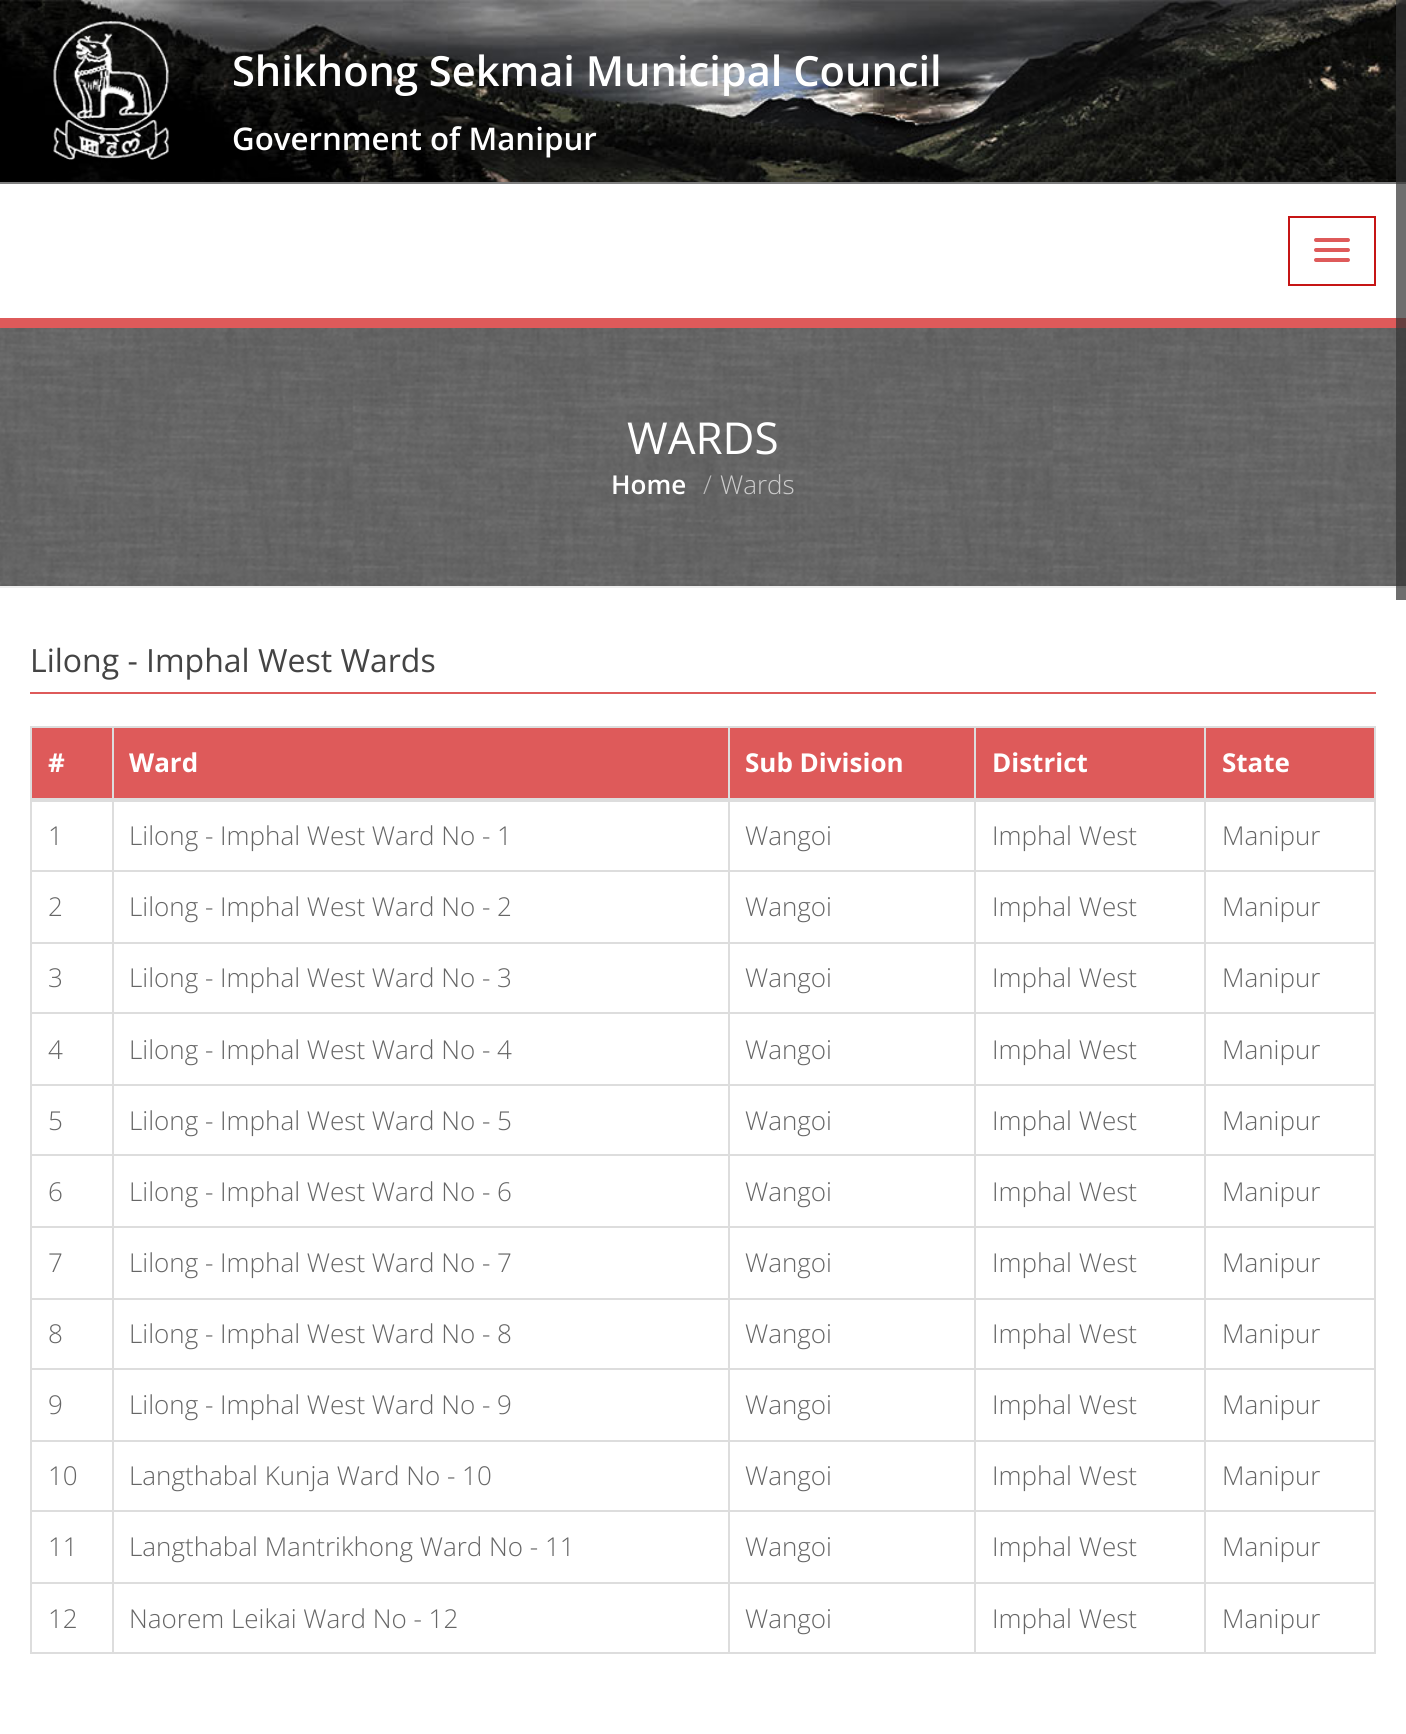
#include <cairo.h>
#include <math.h>
#include <stddef.h>

typedef struct { const char *family; double size; int italic, bold; unsigned color; } style_t;
static cairo_t *ctx;

static void ink(unsigned color) {
    cairo_set_source_rgb(ctx, (color >> 16) / 255.0, (color >> 8 & 255) / 255.0, (color & 255) / 255.0);
}

static void write(double x, double y, const char *s, const style_t *st) {
    cairo_select_font_face(ctx, st->family, st->italic ? CAIRO_FONT_SLANT_ITALIC : CAIRO_FONT_SLANT_NORMAL,
        st->bold ? CAIRO_FONT_WEIGHT_BOLD : CAIRO_FONT_WEIGHT_NORMAL);
    cairo_set_font_size(ctx, st->size);
    ink(st->color);
    cairo_move_to(ctx, x, y);
    cairo_show_text(ctx, s);
}

static void block(double x, double y, double w, double h, unsigned color) {
    ink(color);
    cairo_rectangle(ctx, x, y, w, h);
    cairo_fill(ctx);
}

static void round_path(double x, double y, double w, double h, double r) {
    cairo_new_sub_path(ctx);
    cairo_arc(ctx, x + w - r, y + h - r, r, 0, M_PI / 2);
    cairo_arc(ctx, x + r, y + h - r, r, M_PI / 2, M_PI);
    cairo_arc(ctx, x + r, y + r, r, M_PI, 1.5 * M_PI);
    cairo_arc(ctx, x + w - r, y + r, r, 1.5 * M_PI, 2 * M_PI);
    cairo_close_path(ctx);
}

static void paste(const char *path, double x, double y, double w, double h) {
    cairo_surface_t *image = cairo_image_surface_create_from_png(path);
    cairo_save(ctx);
    cairo_set_source_surface(ctx, image, x, y);
    cairo_rectangle(ctx, x, y, w, h);
    cairo_fill(ctx);
    cairo_restore(ctx);
    cairo_surface_destroy(image);
}

static const style_t s1 = {"Open Sans SemiBold", 41.6, 0, 0, 0xffffff};
static const style_t s2 = {"Open Sans SemiBold", 31.25, 0, 0, 0xffffff};
static const style_t s3 = {"Open Sans", 44, 0, 0, 0xffffff};
static const style_t s4 = {"Open Sans SemiBold", 26, 0, 0, 0xffffff};
static const style_t s5 = {"Open Sans Light", 26, 0, 0, 0xbbbbbb};
static const style_t s6 = {"Open Sans Light", 26, 0, 0, 0xcccccc};
static const style_t s7 = {"Open Sans", 32, 0, 0, 0x444444};
static const style_t s8 = {"Open Sans", 26, 0, 1, 0xffffff};
static const style_t s9 = {"Open Sans Light", 26, 0, 0, 0x666666};

int main(void) {
    cairo_surface_t *surface = cairo_image_surface_create(CAIRO_FORMAT_RGB24, 1406, 1734);
    ctx = cairo_create(surface);
    cairo_font_options_t *options = cairo_font_options_create();
    cairo_font_options_set_hint_metrics(options, CAIRO_HINT_METRICS_OFF);
    cairo_font_options_set_hint_style(options, CAIRO_HINT_STYLE_NONE);
    cairo_set_font_options(ctx, options);
    cairo_set_miter_limit(ctx, 4);
    ink(0xffffff);
    cairo_paint(ctx);
    paste("pic1.png", 0, 0, 1406, 182);
    block(0, 182, 1406, 2, 0x808080);
    paste("pic2.png", 53, 21, 116, 139);
    write(232, 86, "Shikhong Sekmai Municipal Council", &s1);
    write(232, 150, "Government of Manipur", &s2);
    block(0, 318, 1406, 10, 0xde5a5a);
    cairo_rectangle(ctx, 1289, 217, 86, 68);
    ink(0xc61515);
    cairo_stroke(ctx);
    ink(0xde5a5a);
    round_path(1314, 238, 36, 4, 2);
    cairo_fill(ctx);
    round_path(1314, 248, 36, 4, 2);
    cairo_fill(ctx);
    round_path(1314, 258, 36, 4, 2);
    cairo_fill(ctx);
    paste("pic3.png", 0, 328, 1406, 258);
    block(0, 586, 1406, 2, 0xeeeeee);
    write(627, 454, "WARDS", &s3);
    write(611, 494, "Home", &s4);
    write(703, 494, "/", &s5);
    write(720, 494, "Wards", &s6);
    block(30, 692, 1346, 2, 0xde5a5a);
    write(30, 672, "Lilong - Imphal West Wards", &s7);
    cairo_rectangle(ctx, 31, 727, 1344, 926);
    ink(0xdddddd);
    cairo_stroke(ctx);
    block(32, 728, 1342, 70, 0xde5a5a);
    write(48, 772, "#", &s8);
    write(129, 772, "Ward", &s8);
    write(745, 772, "Sub Division", &s8);
    write(992, 772, "District", &s8);
    block(1204, 870, 170, 2, 0xdddddd);
    block(1204, 942, 170, 2, 0xdddddd);
    block(1204, 1012, 170, 2, 0xdddddd);
    block(1204, 1084, 170, 2, 0xdddddd);
    block(1204, 1154, 170, 2, 0xdddddd);
    block(1204, 1226, 170, 2, 0xdddddd);
    block(1204, 1298, 170, 2, 0xdddddd);
    block(1204, 1368, 170, 2, 0xdddddd);
    block(1204, 1440, 170, 2, 0xdddddd);
    block(1204, 1510, 170, 2, 0xdddddd);
    block(1204, 1582, 170, 2, 0xdddddd);
    block(1204, 1582, 2, 70, 0xdddddd);
    block(974, 1582, 232, 2, 0xdddddd);
    block(1204, 1510, 2, 74, 0xdddddd);
    block(974, 1510, 232, 2, 0xdddddd);
    block(1204, 1440, 2, 72, 0xdddddd);
    block(974, 1440, 232, 2, 0xdddddd);
    block(1204, 1368, 2, 74, 0xdddddd);
    block(974, 1368, 232, 2, 0xdddddd);
    block(1204, 1298, 2, 72, 0xdddddd);
    block(974, 1298, 232, 2, 0xdddddd);
    block(1204, 1226, 2, 74, 0xdddddd);
    block(974, 1226, 232, 2, 0xdddddd);
    block(1204, 1154, 2, 74, 0xdddddd);
    block(974, 1154, 232, 2, 0xdddddd);
    block(1204, 1084, 2, 72, 0xdddddd);
    block(974, 1084, 232, 2, 0xdddddd);
    block(1204, 1012, 2, 74, 0xdddddd);
    block(974, 1012, 232, 2, 0xdddddd);
    block(1204, 942, 2, 72, 0xdddddd);
    block(974, 942, 232, 2, 0xdddddd);
    block(1204, 870, 2, 74, 0xdddddd);
    block(974, 870, 232, 2, 0xdddddd);
    block(974, 1582, 2, 70, 0xdddddd);
    block(728, 1582, 248, 2, 0xdddddd);
    block(974, 1510, 2, 74, 0xdddddd);
    block(728, 1510, 248, 2, 0xdddddd);
    block(974, 1440, 2, 72, 0xdddddd);
    block(728, 1440, 248, 2, 0xdddddd);
    block(974, 1368, 2, 74, 0xdddddd);
    block(728, 1368, 248, 2, 0xdddddd);
    block(974, 1298, 2, 72, 0xdddddd);
    block(728, 1298, 248, 2, 0xdddddd);
    block(974, 1226, 2, 74, 0xdddddd);
    block(728, 1226, 248, 2, 0xdddddd);
    block(974, 1154, 2, 74, 0xdddddd);
    block(728, 1154, 248, 2, 0xdddddd);
    block(974, 1084, 2, 72, 0xdddddd);
    block(728, 1084, 248, 2, 0xdddddd);
    block(974, 1012, 2, 74, 0xdddddd);
    block(728, 1012, 248, 2, 0xdddddd);
    block(974, 942, 2, 72, 0xdddddd);
    block(728, 942, 248, 2, 0xdddddd);
    block(974, 870, 2, 74, 0xdddddd);
    block(728, 870, 248, 2, 0xdddddd);
    block(728, 1582, 2, 70, 0xdddddd);
    block(112, 1582, 618, 2, 0xdddddd);
    block(728, 1510, 2, 74, 0xdddddd);
    block(112, 1510, 618, 2, 0xdddddd);
    block(728, 1440, 2, 72, 0xdddddd);
    block(112, 1440, 618, 2, 0xdddddd);
    block(728, 1368, 2, 74, 0xdddddd);
    block(112, 1368, 618, 2, 0xdddddd);
    block(728, 1298, 2, 72, 0xdddddd);
    block(112, 1298, 618, 2, 0xdddddd);
    block(728, 1226, 2, 74, 0xdddddd);
    block(112, 1226, 618, 2, 0xdddddd);
    block(728, 1154, 2, 74, 0xdddddd);
    block(112, 1154, 618, 2, 0xdddddd);
    block(728, 1084, 2, 72, 0xdddddd);
    block(112, 1084, 618, 2, 0xdddddd);
    block(728, 1012, 2, 74, 0xdddddd);
    block(112, 1012, 618, 2, 0xdddddd);
    block(728, 942, 2, 72, 0xdddddd);
    block(112, 942, 618, 2, 0xdddddd);
    block(728, 870, 2, 74, 0xdddddd);
    block(112, 870, 618, 2, 0xdddddd);
    block(112, 1582, 2, 70, 0xdddddd);
    block(32, 1582, 82, 2, 0xdddddd);
    block(112, 1510, 2, 74, 0xdddddd);
    block(32, 1510, 82, 2, 0xdddddd);
    block(112, 1440, 2, 72, 0xdddddd);
    block(32, 1440, 82, 2, 0xdddddd);
    block(112, 1368, 2, 74, 0xdddddd);
    block(32, 1368, 82, 2, 0xdddddd);
    block(112, 1298, 2, 72, 0xdddddd);
    block(32, 1298, 82, 2, 0xdddddd);
    block(112, 1226, 2, 74, 0xdddddd);
    block(32, 1226, 82, 2, 0xdddddd);
    block(112, 1154, 2, 74, 0xdddddd);
    block(32, 1154, 82, 2, 0xdddddd);
    block(112, 1084, 2, 72, 0xdddddd);
    block(32, 1084, 82, 2, 0xdddddd);
    block(112, 1012, 2, 74, 0xdddddd);
    block(32, 1012, 82, 2, 0xdddddd);
    block(112, 942, 2, 72, 0xdddddd);
    block(32, 942, 82, 2, 0xdddddd);
    block(112, 870, 2, 74, 0xdddddd);
    block(32, 870, 82, 2, 0xdddddd);
    block(112, 728, 2, 144, 0xdddddd);
    block(728, 728, 2, 144, 0xdddddd);
    block(974, 728, 2, 144, 0xdddddd);
    block(1204, 728, 2, 144, 0xdddddd);
    block(32, 798, 1342, 4, 0xdddddd);
    write(1222, 772, "State", &s8);
    write(48, 845, "1", &s9);
    write(129, 845, "Lilong - Imphal West Ward No - 1", &s9);
    write(745, 845, "Wangoi", &s9);
    write(992, 845, "Imphal West", &s9);
    write(1222, 845, "Manipur", &s9);
    write(48, 916, "2", &s9);
    write(129, 916, "Lilong - Imphal West Ward No - 2", &s9);
    write(745, 916, "Wangoi", &s9);
    write(992, 916, "Imphal West", &s9);
    write(1222, 916, "Manipur", &s9);
    write(48, 987, "3", &s9);
    write(129, 987, "Lilong - Imphal West Ward No - 3", &s9);
    write(745, 987, "Wangoi", &s9);
    write(992, 987, "Imphal West", &s9);
    write(1222, 987, "Manipur", &s9);
    write(48, 1059, "4", &s9);
    write(129, 1059, "Lilong - Imphal West Ward No - 4", &s9);
    write(745, 1059, "Wangoi", &s9);
    write(992, 1059, "Imphal West", &s9);
    write(1222, 1059, "Manipur", &s9);
    write(48, 1130, "5", &s9);
    write(129, 1130, "Lilong - Imphal West Ward No - 5", &s9);
    write(745, 1130, "Wangoi", &s9);
    write(992, 1130, "Imphal West", &s9);
    write(1222, 1130, "Manipur", &s9);
    write(48, 1201, "6", &s9);
    write(129, 1201, "Lilong - Imphal West Ward No - 6", &s9);
    write(745, 1201, "Wangoi", &s9);
    write(992, 1201, "Imphal West", &s9);
    write(1222, 1201, "Manipur", &s9);
    write(48, 1272, "7", &s9);
    write(129, 1272, "Lilong - Imphal West Ward No - 7", &s9);
    write(745, 1272, "Wangoi", &s9);
    write(992, 1272, "Imphal West", &s9);
    write(1222, 1272, "Manipur", &s9);
    write(48, 1343, "8", &s9);
    write(129, 1343, "Lilong - Imphal West Ward No - 8", &s9);
    write(745, 1343, "Wangoi", &s9);
    write(992, 1343, "Imphal West", &s9);
    write(1222, 1343, "Manipur", &s9);
    write(48, 1414, "9", &s9);
    write(129, 1414, "Lilong - Imphal West Ward No - 9", &s9);
    write(745, 1414, "Wangoi", &s9);
    write(992, 1414, "Imphal West", &s9);
    write(1222, 1414, "Manipur", &s9);
    write(48, 1485, "10", &s9);
    write(129, 1485, "Langthabal Kunja Ward No - 10", &s9);
    write(745, 1485, "Wangoi", &s9);
    write(992, 1485, "Imphal West", &s9);
    write(1222, 1485, "Manipur", &s9);
    write(48, 1556, "11", &s9);
    write(129, 1556, "Langthabal Mantrikhong Ward No - 11", &s9);
    write(745, 1556, "Wangoi", &s9);
    write(992, 1556, "Imphal West", &s9);
    write(1222, 1556, "Manipur", &s9);
    write(48, 1628, "12", &s9);
    write(129, 1628, "Naorem Leikai Ward No - 12", &s9);
    write(745, 1628, "Wangoi", &s9);
    write(992, 1628, "Imphal West", &s9);
    write(1222, 1628, "Manipur", &s9);
    cairo_set_source_rgba(ctx, 0.2, 0.2, 0.2, 0.71);
    cairo_rectangle(ctx, 1396, 0, 10, 600);
    cairo_fill(ctx);
    cairo_surface_write_to_png(surface, "screenshot.png");
    cairo_font_options_destroy(options);
    cairo_destroy(ctx);
    cairo_surface_destroy(surface);
    return 0;
}
